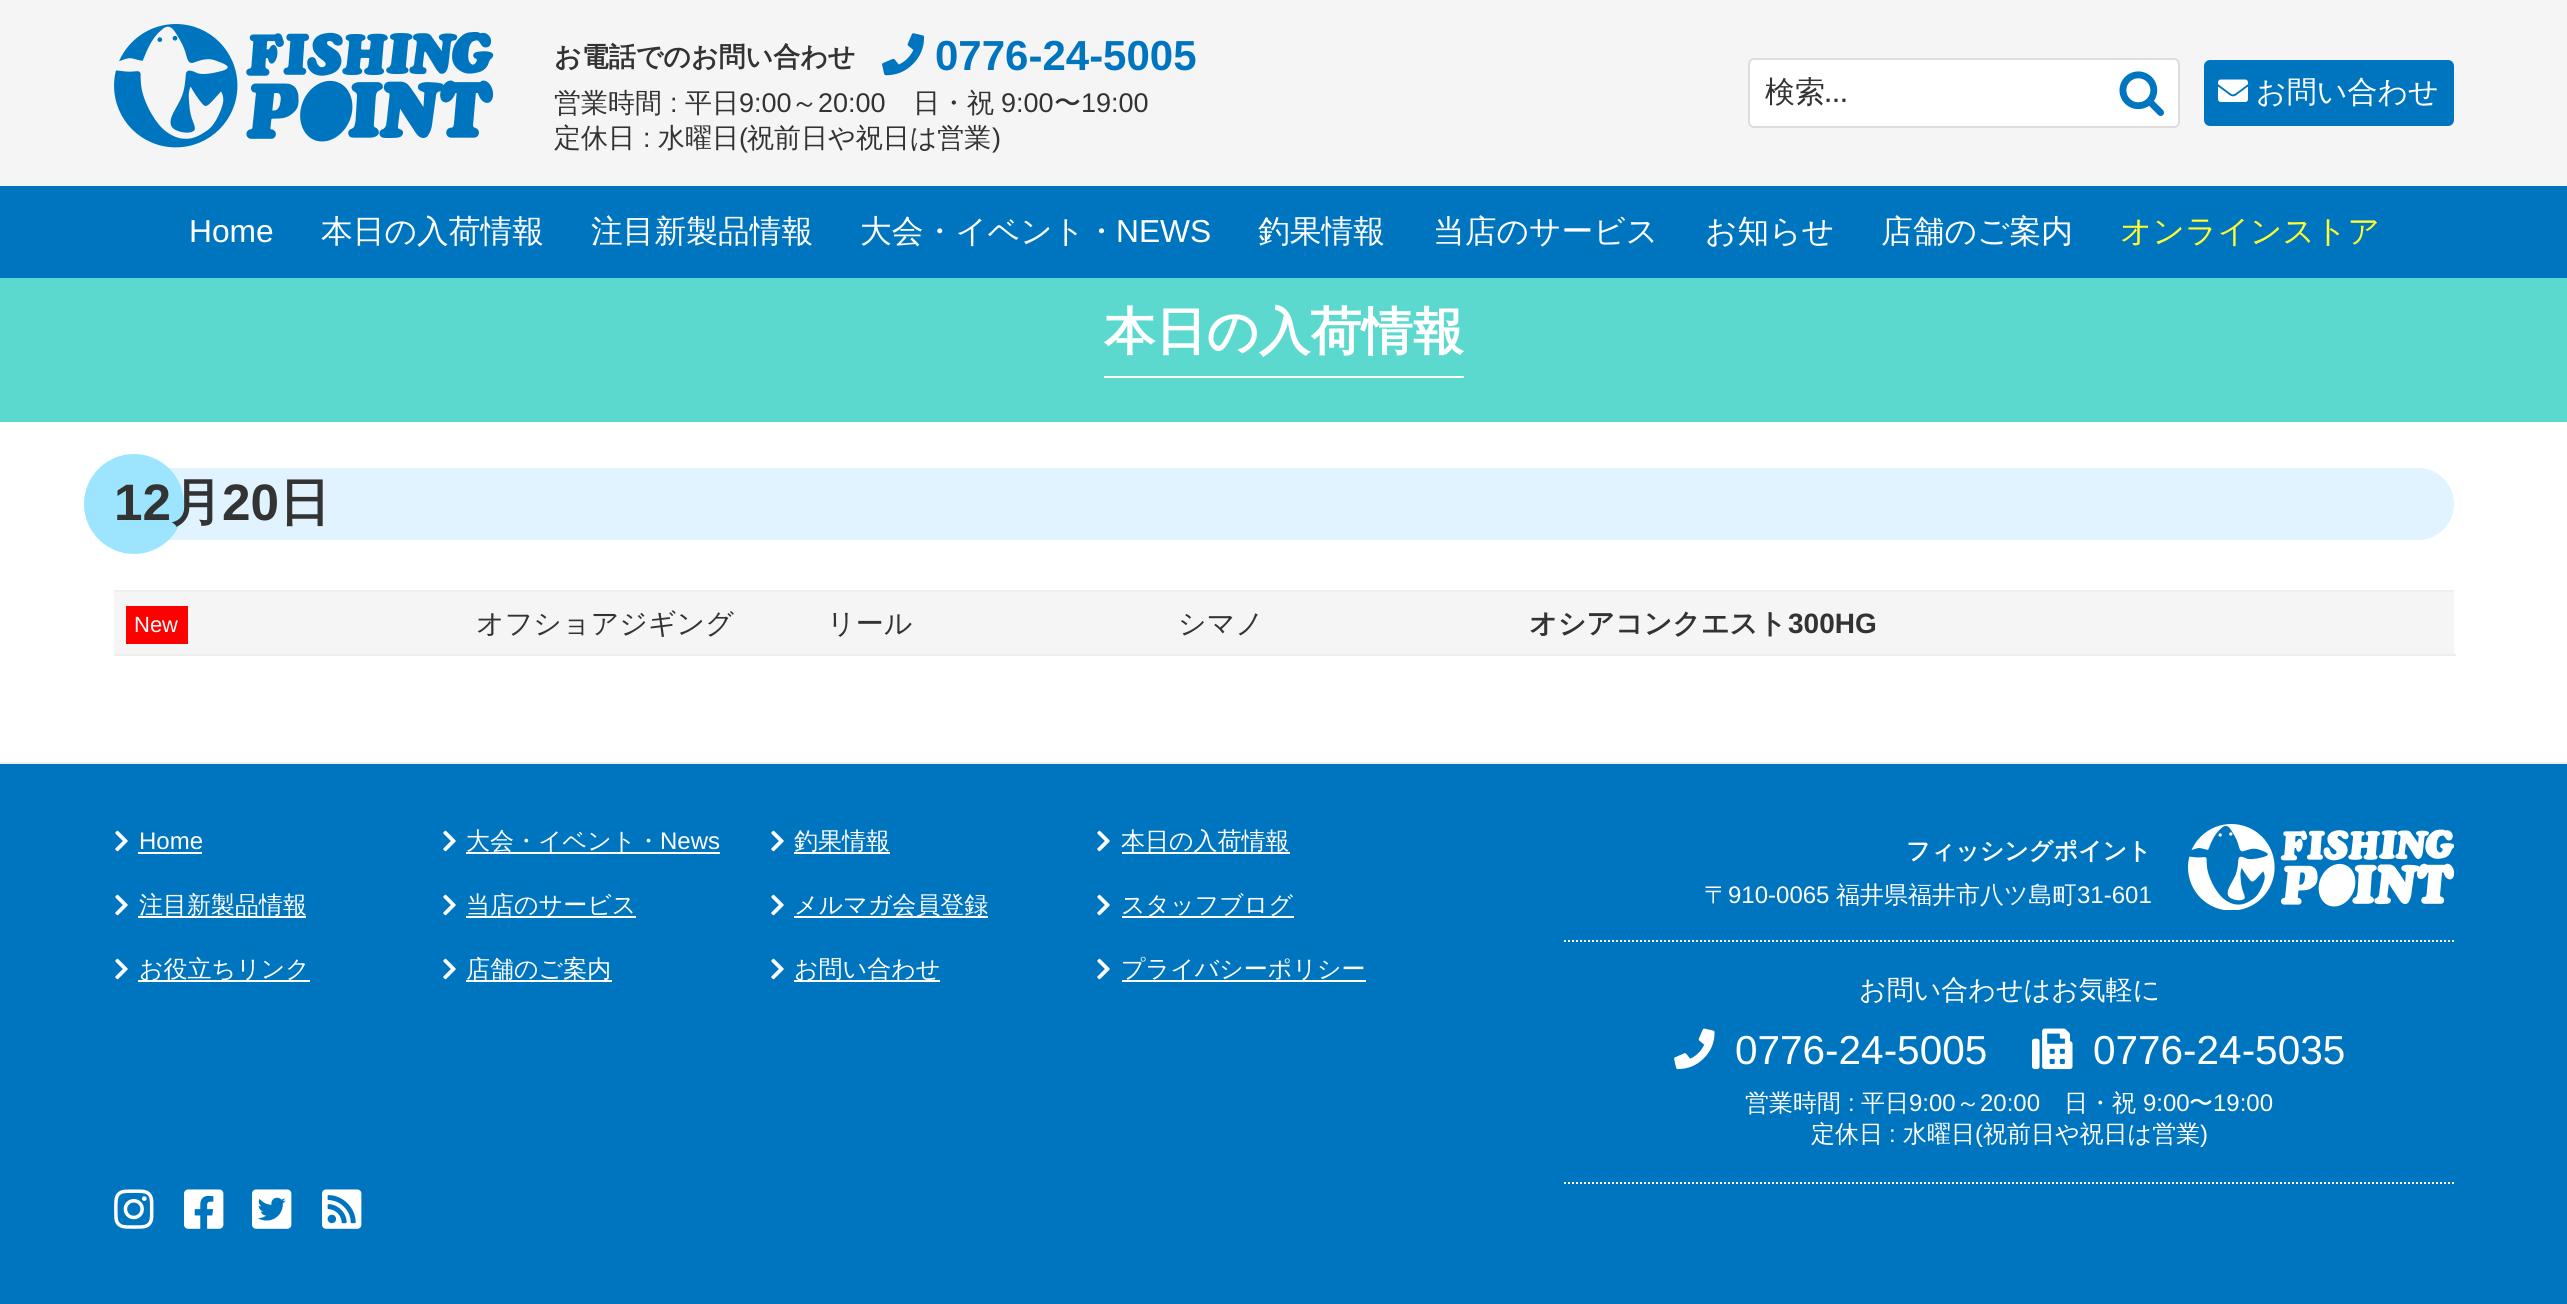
#include <cairo.h>
#include <math.h>
#include <stddef.h>

typedef struct { const char *family; double size; int italic, bold; unsigned color; } style_t;
static cairo_t *ctx;

static void ink(unsigned color) {
    cairo_set_source_rgb(ctx, (color >> 16) / 255.0, (color >> 8 & 255) / 255.0, (color & 255) / 255.0);
}

static void write(double x, double y, const char *s, const style_t *st) {
    cairo_select_font_face(ctx, st->family, st->italic ? CAIRO_FONT_SLANT_ITALIC : CAIRO_FONT_SLANT_NORMAL,
        st->bold ? CAIRO_FONT_WEIGHT_BOLD : CAIRO_FONT_WEIGHT_NORMAL);
    cairo_set_font_size(ctx, st->size);
    ink(st->color);
    cairo_move_to(ctx, x, y);
    cairo_show_text(ctx, s);
}

static void block(double x, double y, double w, double h, unsigned color) {
    ink(color);
    cairo_rectangle(ctx, x, y, w, h);
    cairo_fill(ctx);
}

static void round_path(double x, double y, double w, double h, double r) {
    cairo_new_sub_path(ctx);
    cairo_arc(ctx, x + w - r, y + h - r, r, 0, M_PI / 2);
    cairo_arc(ctx, x + r, y + h - r, r, M_PI / 2, M_PI);
    cairo_arc(ctx, x + r, y + r, r, M_PI, 1.5 * M_PI);
    cairo_arc(ctx, x + w - r, y + r, r, 1.5 * M_PI, 2 * M_PI);
    cairo_close_path(ctx);
}

static void paste(const char *path, double x, double y, double w, double h) {
    cairo_surface_t *image = cairo_image_surface_create_from_png(path);
    cairo_save(ctx);
    cairo_set_source_surface(ctx, image, x, y);
    cairo_rectangle(ctx, x, y, w, h);
    cairo_fill(ctx);
    cairo_restore(ctx);
    cairo_surface_destroy(image);
}

static const style_t s1 = {"WenQuanYi Zen Hei", 27, 0, 1, 0x333333};
static const style_t s2 = {"Liberation Sans", 42, 0, 1, 0x0075bf};
static const style_t s3 = {"WenQuanYi Zen Hei Medium", 27, 0, 0, 0x333333};
static const style_t s4 = {"Liberation Sans", 27, 0, 0, 0x333333};
static const style_t s5 = {"WenQuanYi Zen Hei Medium", 30, 0, 0, 0x333333};
static const style_t s6 = {"Libre Franklin", 30, 0, 0, 0x333333};
static const style_t s7 = {"WenQuanYi Zen Hei Medium", 30, 0, 0, 0xffffff};
static const style_t s8 = {"Liberation Sans", 31.75, 0, 0, 0xffffff};
static const style_t s9 = {"WenQuanYi Zen Hei Medium", 31.75, 0, 0, 0xffffff};
static const style_t s10 = {"WenQuanYi Zen Hei Medium", 31.75, 0, 0, 0xffff33};
static const style_t s11 = {"WenQuanYi Zen Hei", 51.25, 0, 1, 0xffffff};
static const style_t s12 = {"WenQuanYi Zen Hei", 51.25, 0, 1, 0x333333};
static const style_t s13 = {"Liberation Sans", 51.25, 0, 1, 0x333333};
static const style_t s14 = {"Liberation Sans", 22, 0, 0, 0xffffff};
static const style_t s15 = {"WenQuanYi Zen Hei Medium", 28, 0, 0, 0x333333};
static const style_t s16 = {"WenQuanYi Zen Hei", 28, 0, 1, 0x333333};
static const style_t s17 = {"Liberation Sans", 28, 0, 1, 0x333333};
static const style_t s18 = {"Liberation Sans", 24, 0, 0, 0xffffff};
static const style_t s19 = {"WenQuanYi Zen Hei Medium", 24, 0, 0, 0xffffff};
static const style_t s20 = {"WenQuanYi Zen Hei", 24, 0, 1, 0xffffff};
static const style_t s21 = {"WenQuanYi Zen Hei Medium", 27, 0, 0, 0xffffff};
static const style_t s22 = {"Liberation Sans", 40.5, 0, 0, 0xffffff};

int main(void) {
    cairo_surface_t *surface = cairo_image_surface_create(CAIRO_FORMAT_RGB24, 2567, 1304);
    ctx = cairo_create(surface);
    cairo_font_options_t *options = cairo_font_options_create();
    cairo_font_options_set_hint_metrics(options, CAIRO_HINT_METRICS_OFF);
    cairo_font_options_set_hint_style(options, CAIRO_HINT_STYLE_NONE);
    cairo_set_font_options(ctx, options);
    cairo_set_miter_limit(ctx, 4);
    ink(0xffffff);
    cairo_paint(ctx);
    block(0, 0, 2567, 186, 0xf5f5f5);
    paste("pic1.png", 114, 24, 380, 124);
    write(554, 66, "お電話でのお問い合わせ", &s1);
    paste("pic2.png", 882, 33, 43, 43);
    write(935, 70, "0776-24-5005", &s2);
    write(554, 112, "営業時間", &s3);
    write(670, 112, ":", &s4);
    write(685, 112, "平日", &s3);
    write(739, 112, "9:00", &s4);
    write(791, 112, "～", &s3);
    write(818, 112, "20:00", &s4);
    write(913, 112, "日・祝", &s3);
    write(1001, 112, "9:00", &s4);
    write(1054, 112, "〜", &s3);
    write(1081, 112, "19:00", &s4);
    write(554, 147, "定休日", &s3);
    write(643, 147, ":", &s4);
    write(658, 147, "水曜日", &s3);
    write(739, 147, "(", &s4);
    write(747, 147, "祝前日や祝日は営業", &s3);
    write(992, 147, ")", &s4);
    ink(0xffffff);
    round_path(1749, 59, 430, 68, 5);
    cairo_fill_preserve(ctx);
    ink(0xdddddd);
    cairo_stroke(ctx);
    write(1765, 102, "検索", &s5);
    write(1825, 102, "…", &s6);
    paste("pic3.png", 2119, 71, 46, 45);
    ink(0x0075bf);
    round_path(2204, 60, 250, 66, 6);
    cairo_fill(ctx);
    paste("pic4.png", 2218, 79, 30, 23);
    write(2256, 102, "お問い合わせ", &s7);
    block(0, 186, 2567, 92, 0x0075bf);
    write(189, 242, "Home", &s8);
    write(321, 242, "本日の入荷情報", &s9);
    write(591, 242, "注目新製品情報", &s9);
    write(860, 242, "大会・イベント・", &s9);
    write(1116, 242, "NEWS", &s8);
    write(1258, 242, "釣果情報", &s9);
    write(1433, 242, "当店のサービス", &s9);
    write(1705, 242, "お知らせ", &s9);
    write(1881, 242, "店舗のご案内", &s9);
    write(2120, 242, "オンラインストア", &s10);
    block(0, 278, 2567, 144, 0x5bd9cf);
    block(1104, 376, 360, 2, 0xffffff);
    write(1104, 349, "本日の入荷情報", &s11);
    ink(0xe0f3ff);
    round_path(114, 468, 2340, 72, 36);
    cairo_fill(ctx);
    ink(0x9de5ff);
    cairo_arc(ctx, 134, 504, 50, 0, 2 * M_PI);
    cairo_fill(ctx);
    write(171, 520, "月", &s12);
    write(279, 520, "日", &s12);
    write(114, 520, "12", &s13);
    write(222, 520, "20", &s13);
    block(114, 590, 2340, 2, 0xeeeeee);
    block(114, 592, 2340, 62, 0xf5f5f5);
    block(114, 654, 2342, 2, 0xeeeeee);
    block(126, 606, 62, 38, 0xff0000);
    write(134, 632, "New", &s14);
    write(476, 633, "オフショアジギング", &s15);
    write(827, 633, "リール", &s15);
    write(1178, 633, "シマノ", &s15);
    write(1529, 633, "オシアコンクエスト", &s16);
    write(1788, 633, "300HG", &s17);
    block(0, 764, 2567, 540, 0x0075bf);
    block(0, 762, 2567, 2, 0xeeeeee);
    paste("pic5.png", 115, 830, 13, 22);
    write(139, 849, "Home", &s18);
    block(138, 852, 64, 2, 0xffffff);
    paste("pic5.png", 443, 830, 13, 22);
    block(466, 852, 254, 2, 0xffffff);
    write(466, 849, "大会・イベント・", &s19);
    write(660, 849, "News", &s18);
    paste("pic5.png", 771, 830, 13, 22);
    block(794, 852, 96, 2, 0xffffff);
    write(794, 849, "釣果情報", &s19);
    paste("pic5.png", 1097, 830, 13, 22);
    block(1122, 852, 168, 2, 0xffffff);
    write(1121, 849, "本日の入荷情報", &s19);
    paste("pic5.png", 115, 894, 13, 22);
    block(138, 916, 168, 2, 0xffffff);
    write(139, 913, "注目新製品情報", &s19);
    paste("pic5.png", 443, 894, 13, 22);
    block(466, 916, 170, 2, 0xffffff);
    write(466, 913, "当店のサービス", &s19);
    paste("pic5.png", 771, 894, 13, 22);
    block(794, 916, 194, 2, 0xffffff);
    write(794, 913, "メルマガ会員登録", &s19);
    paste("pic5.png", 1097, 894, 13, 22);
    block(1122, 916, 172, 2, 0xffffff);
    write(1121, 913, "スタッフブログ", &s19);
    paste("pic5.png", 115, 958, 13, 22);
    block(138, 980, 172, 2, 0xffffff);
    write(139, 977, "お役立ちリンク", &s19);
    paste("pic5.png", 443, 958, 13, 22);
    block(466, 980, 146, 2, 0xffffff);
    write(466, 977, "店舗のご案内", &s19);
    paste("pic5.png", 771, 958, 13, 22);
    block(794, 980, 146, 2, 0xffffff);
    write(794, 977, "お問い合わせ", &s19);
    paste("pic5.png", 1097, 958, 13, 22);
    block(1122, 980, 244, 2, 0xffffff);
    write(1121, 977, "プライバシーポリシー", &s19);
    write(1906, 859, "フィッシングポイント", &s20);
    write(1704, 903, "〒", &s19);
    write(1728, 903, "910-0065", &s18);
    write(1836, 903, "福井県福井市八ツ島町", &s19);
    write(2077, 903, "31-601", &s18);
    paste("pic6.png", 2188, 824, 266, 86);
    cairo_new_path(ctx);
    cairo_move_to(ctx, 1564, 941);
    cairo_line_to(ctx, 2454, 941);
    cairo_set_dash(ctx, (double[]){2, 2}, 2, 0);
    cairo_stroke(ctx);
    cairo_new_path(ctx);
    cairo_move_to(ctx, 1564, 1183);
    cairo_line_to(ctx, 2454, 1183);
    cairo_stroke(ctx);
    write(1859, 999, "お問い合わせはお気軽に", &s21);
    paste("pic7.png", 1674, 1028, 41, 42);
    write(1735, 1064, "0776-24-5005", &s22);
    paste("pic8.png", 2032, 1028, 41, 42);
    write(2093, 1064, "0776-24-5035", &s22);
    write(1745, 1111, "営業時間", &s19);
    write(1848, 1111, ":", &s18);
    write(1861, 1111, "平日", &s19);
    write(1909, 1111, "9:00", &s18);
    write(1956, 1111, "～", &s19);
    write(1980, 1111, "20:00", &s18);
    write(2064, 1111, "日・祝", &s19);
    write(2143, 1111, "9:00", &s18);
    write(2189, 1111, "〜", &s19);
    write(2213, 1111, "19:00", &s18);
    write(1811, 1142, "定休日", &s19);
    write(1889, 1142, ":", &s18);
    write(1903, 1142, "水曜日", &s19);
    write(1975, 1142, "(", &s18);
    write(1983, 1142, "祝前日や祝日は営業", &s19);
    write(2200, 1142, ")", &s18);
    paste("pic9.png", 114, 1189, 40, 40);
    paste("pic10.png", 184, 1189, 40, 40);
    paste("pic11.png", 252, 1189, 40, 40);
    paste("pic12.png", 322, 1189, 40, 40);
    cairo_surface_write_to_png(surface, "screenshot.png");
    cairo_font_options_destroy(options);
    cairo_destroy(ctx);
    cairo_surface_destroy(surface);
    return 0;
}
